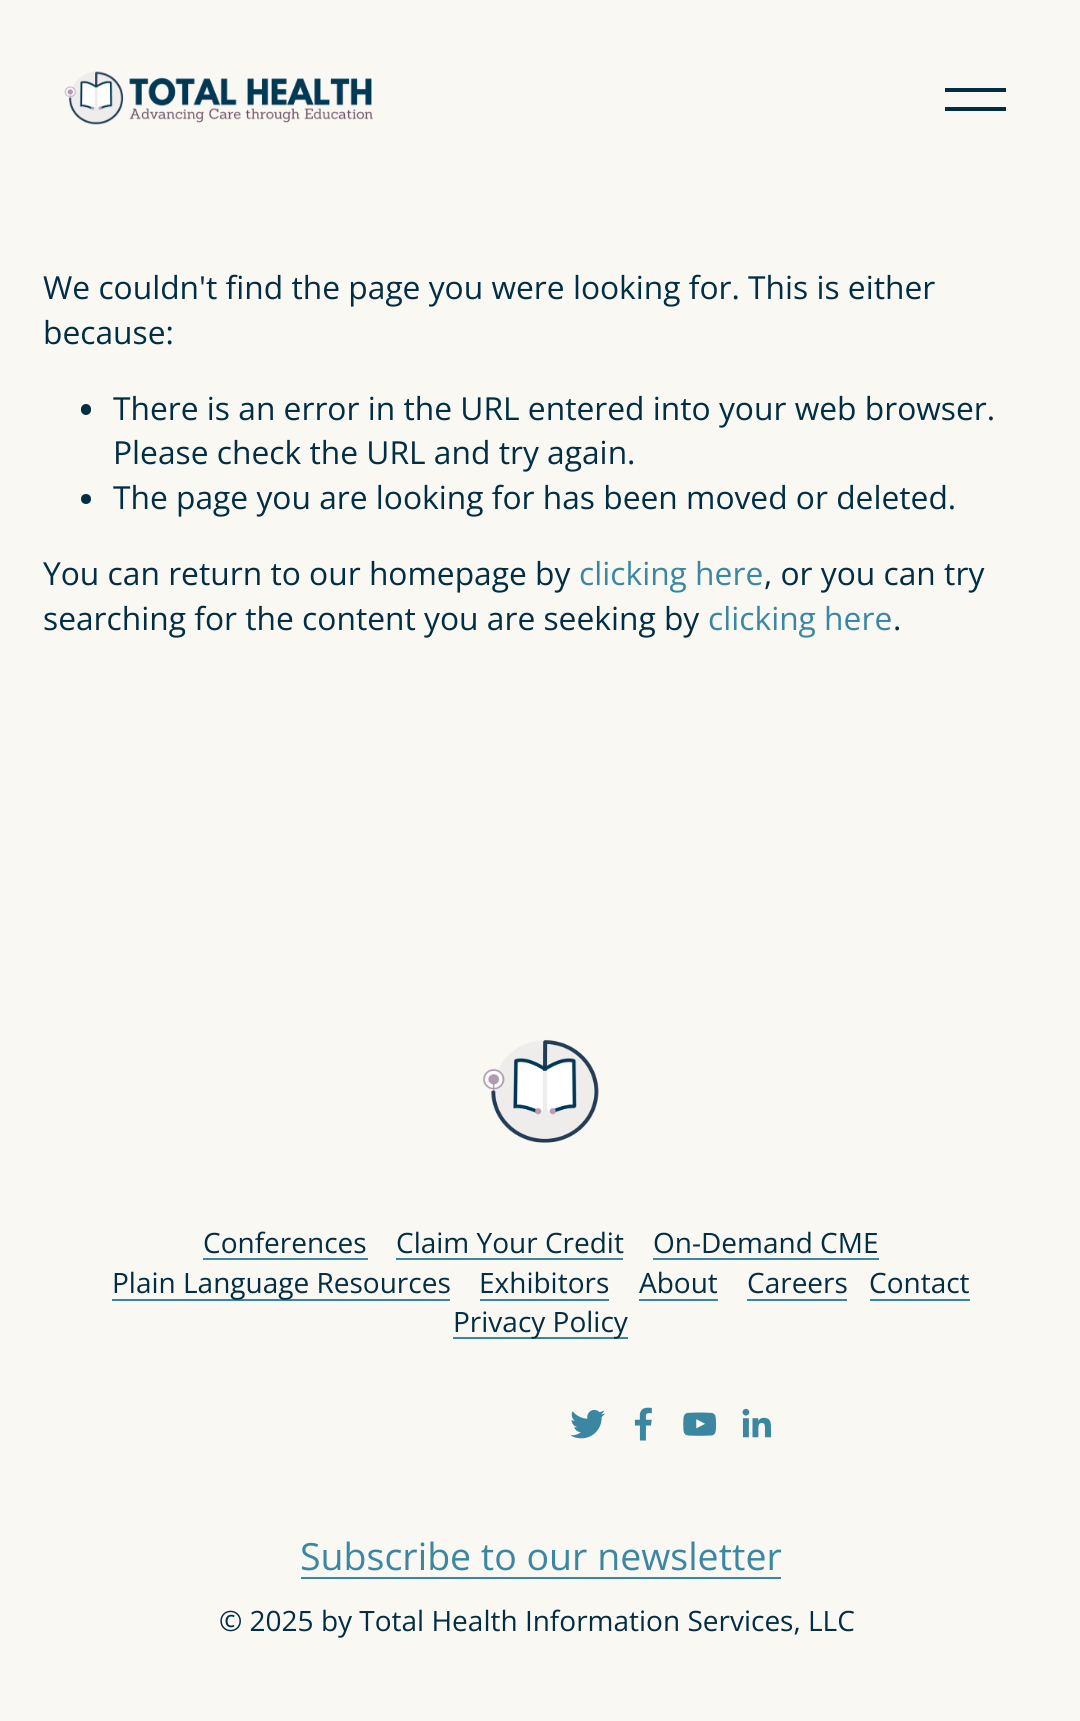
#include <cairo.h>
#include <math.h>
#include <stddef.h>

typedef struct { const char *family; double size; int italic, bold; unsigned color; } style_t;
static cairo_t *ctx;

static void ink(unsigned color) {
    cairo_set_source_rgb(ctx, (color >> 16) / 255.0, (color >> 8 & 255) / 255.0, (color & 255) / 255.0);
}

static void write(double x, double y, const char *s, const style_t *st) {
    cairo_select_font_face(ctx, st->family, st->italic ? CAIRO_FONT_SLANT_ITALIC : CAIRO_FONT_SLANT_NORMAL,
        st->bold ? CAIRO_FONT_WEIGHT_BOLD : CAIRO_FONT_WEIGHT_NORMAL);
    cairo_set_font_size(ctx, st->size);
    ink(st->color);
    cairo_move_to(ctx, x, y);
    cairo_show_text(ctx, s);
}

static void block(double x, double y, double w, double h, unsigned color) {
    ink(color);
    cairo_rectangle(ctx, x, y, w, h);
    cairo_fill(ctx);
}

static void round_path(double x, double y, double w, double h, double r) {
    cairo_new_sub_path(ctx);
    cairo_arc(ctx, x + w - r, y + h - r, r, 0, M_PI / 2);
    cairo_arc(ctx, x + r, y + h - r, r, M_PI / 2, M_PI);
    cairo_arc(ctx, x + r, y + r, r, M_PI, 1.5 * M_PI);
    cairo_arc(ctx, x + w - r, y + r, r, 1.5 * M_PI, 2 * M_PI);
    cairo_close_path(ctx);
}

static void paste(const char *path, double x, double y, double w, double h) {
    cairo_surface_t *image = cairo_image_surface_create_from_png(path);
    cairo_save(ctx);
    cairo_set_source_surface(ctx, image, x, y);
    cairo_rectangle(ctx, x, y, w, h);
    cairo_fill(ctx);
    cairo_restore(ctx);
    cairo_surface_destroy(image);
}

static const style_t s1 = {"Open Sans", 31.75, 0, 0, 0x022e44};
static const style_t s2 = {"Open Sans", 31.75, 0, 0, 0x3b87a2};
static const style_t s3 = {"Open Sans", 28, 0, 0, 0x022e44};
static const style_t s4 = {"Open Sans", 37.5, 0, 0, 0x3b87a2};

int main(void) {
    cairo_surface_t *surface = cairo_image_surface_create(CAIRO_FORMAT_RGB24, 1080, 1721);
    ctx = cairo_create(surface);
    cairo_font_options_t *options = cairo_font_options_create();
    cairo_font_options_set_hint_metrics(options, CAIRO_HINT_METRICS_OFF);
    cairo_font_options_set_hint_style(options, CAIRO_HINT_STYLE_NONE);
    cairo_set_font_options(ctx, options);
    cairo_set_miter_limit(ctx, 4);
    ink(0xfaf8f3);
    cairo_paint(ctx);
    paste("pic1.png", 64, 71, 309, 54);
    block(945, 88, 61, 4, 0x022e44);
    block(945, 107, 61, 4, 0x022e44);
    write(43, 299, "We couldn't find the page you were looking for. This is either", &s1);
    write(43, 344, "because:", &s1);
    round_path(81, 404, 10, 11, 5);
    cairo_fill(ctx);
    write(113, 420, "There is an error in the URL entered into your web browser.", &s1);
    write(113, 464, "Please check the URL and try again.", &s1);
    cairo_new_path(ctx);
    cairo_arc(ctx, 86, 499, 5, 0, 2 * M_PI);
    cairo_fill(ctx);
    write(113, 509, "The page you are looking for has been moved or deleted.", &s1);
    write(43, 585, "You can return to our homepage by", &s1);
    write(579, 585, "clicking here", &s2);
    write(764, 585, ", or you can try", &s1);
    write(43, 630, "searching for the content you are seeking by", &s1);
    write(708, 630, "clicking here", &s2);
    write(893, 630, ".", &s1);
    paste("pic2.png", 483, 1039, 116, 104);
    write(203, 1253, "Conferences", &s3);
    block(203, 1258, 165, 2, 0x3b87a2);
    write(396, 1253, "Claim Your Credit", &s3);
    block(396, 1258, 227, 2, 0x3b87a2);
    write(653, 1253, "On-Demand CME", &s3);
    block(653, 1258, 226, 2, 0x3b87a2);
    block(112, 1299, 338, 2, 0x3b87a2);
    write(112, 1293, "Plain Language Resources", &s3);
    write(479, 1293, "Exhibitors", &s3);
    block(480, 1299, 129, 2, 0x3b87a2);
    write(639, 1293, "About", &s3);
    block(639, 1299, 79, 2, 0x3b87a2);
    write(747, 1293, "Careers", &s3);
    block(747, 1299, 100, 2, 0x3b87a2);
    write(869, 1293, "Contact", &s3);
    block(870, 1299, 100, 2, 0x3b87a2);
    block(453, 1337, 175, 2, 0x3b87a2);
    write(453, 1332, "Privacy Policy", &s3);
    paste("pic3.png", 571, 1409, 34, 30);
    paste("pic4.png", 634, 1407, 18, 34);
    paste("pic5.png", 683, 1412, 34, 24);
    paste("pic6.png", 742, 1408, 29, 30);
    write(300, 1570, "Subscribe to our newsletter", &s4);
    block(301, 1577, 480, 2, 0x3b87a2);
    write(219, 1631, "© 2025 by Total Health Information Services, LLC", &s3);
    cairo_surface_write_to_png(surface, "screenshot.png");
    cairo_font_options_destroy(options);
    cairo_destroy(ctx);
    cairo_surface_destroy(surface);
    return 0;
}
